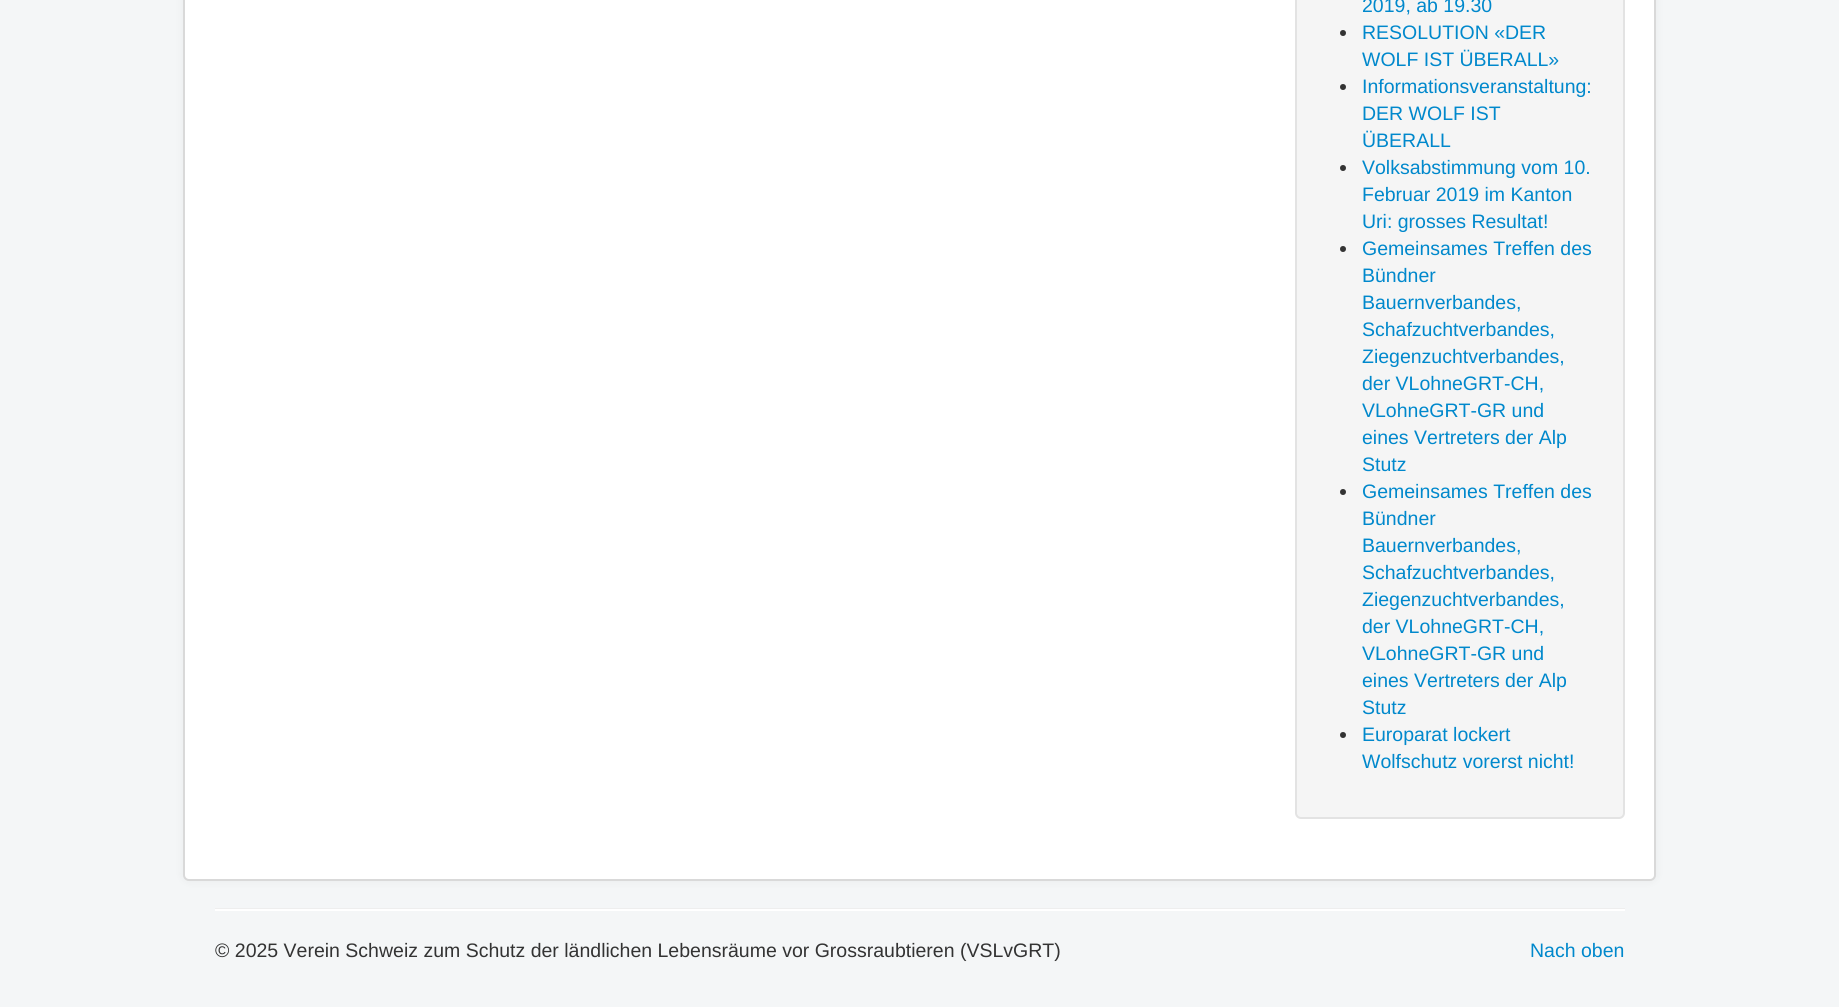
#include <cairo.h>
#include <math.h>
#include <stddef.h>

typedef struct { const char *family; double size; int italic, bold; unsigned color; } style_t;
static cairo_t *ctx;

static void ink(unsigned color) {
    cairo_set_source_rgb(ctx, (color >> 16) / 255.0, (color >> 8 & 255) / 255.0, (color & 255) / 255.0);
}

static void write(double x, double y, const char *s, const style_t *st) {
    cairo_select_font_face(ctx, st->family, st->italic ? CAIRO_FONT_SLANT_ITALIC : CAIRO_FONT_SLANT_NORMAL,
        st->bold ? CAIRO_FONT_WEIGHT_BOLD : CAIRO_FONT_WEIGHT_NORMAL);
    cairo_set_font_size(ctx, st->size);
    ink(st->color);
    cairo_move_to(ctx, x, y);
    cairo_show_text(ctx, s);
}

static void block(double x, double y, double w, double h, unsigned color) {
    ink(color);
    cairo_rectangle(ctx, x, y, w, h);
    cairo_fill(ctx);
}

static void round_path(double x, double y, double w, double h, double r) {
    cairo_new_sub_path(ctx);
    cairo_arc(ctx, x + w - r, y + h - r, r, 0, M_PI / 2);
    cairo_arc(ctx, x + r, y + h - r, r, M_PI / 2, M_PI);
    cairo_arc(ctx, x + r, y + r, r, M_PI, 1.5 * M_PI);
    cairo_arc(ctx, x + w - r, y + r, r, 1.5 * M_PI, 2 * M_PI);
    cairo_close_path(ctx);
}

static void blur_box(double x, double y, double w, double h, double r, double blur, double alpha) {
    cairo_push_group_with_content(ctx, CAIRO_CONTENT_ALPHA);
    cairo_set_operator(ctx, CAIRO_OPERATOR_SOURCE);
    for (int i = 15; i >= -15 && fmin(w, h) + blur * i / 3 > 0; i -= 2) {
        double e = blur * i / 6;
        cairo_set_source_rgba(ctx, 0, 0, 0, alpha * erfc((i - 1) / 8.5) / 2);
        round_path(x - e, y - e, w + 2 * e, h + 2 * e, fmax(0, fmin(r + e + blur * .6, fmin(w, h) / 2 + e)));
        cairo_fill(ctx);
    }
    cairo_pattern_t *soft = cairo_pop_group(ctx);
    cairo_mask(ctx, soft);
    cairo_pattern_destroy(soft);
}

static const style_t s1 = {"Liberation Sans", 19.5, 0, 0, 0x0088cc};
static const style_t s2 = {"Liberation Sans", 19.5, 0, 0, 0x333333};

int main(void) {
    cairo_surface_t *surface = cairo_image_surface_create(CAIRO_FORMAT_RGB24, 1839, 1007);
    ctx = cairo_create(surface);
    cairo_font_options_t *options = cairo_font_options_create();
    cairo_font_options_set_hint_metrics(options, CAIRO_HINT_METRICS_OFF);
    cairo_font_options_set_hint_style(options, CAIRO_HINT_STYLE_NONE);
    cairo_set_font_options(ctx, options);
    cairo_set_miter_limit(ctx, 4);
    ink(0xf4f6f7);
    cairo_paint(ctx);
    ink(0x000000);
    blur_box(183, -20, 1473, 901, 6, 4.5, 0.05);
    ink(0xffffff);
    round_path(183, -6, 1473, 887, 6);
    cairo_fill(ctx);
    round_path(184, -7, 1471, 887, 5);
    cairo_set_source_rgba(ctx, 0, 0, 0, 0.15);
    cairo_stroke(ctx);
    ink(0xf5f5f5);
    round_path(1296, -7, 328, 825, 5);
    cairo_fill_preserve(ctx);
    ink(0xe3e3e3);
    cairo_stroke(ctx);
    write(1362, 12, "2019, ab 19.30", &s1);
    ink(0x333333);
    cairo_new_path(ctx);
    cairo_arc(ctx, 1343, 33, 3, 0, 2 * M_PI);
    cairo_fill(ctx);
    write(1362, 39, "RESOLUTION «DER", &s1);
    write(1362, 66, "WOLF IST ÜBERALL»", &s1);
    ink(0x333333);
    cairo_new_path(ctx);
    cairo_arc(ctx, 1343, 87, 3, 0, 2 * M_PI);
    cairo_fill(ctx);
    write(1362, 93, "Informationsveranstaltung:", &s1);
    write(1362, 120, "DER WOLF IST", &s1);
    write(1362, 147, "ÜBERALL", &s1);
    ink(0x333333);
    cairo_new_path(ctx);
    cairo_arc(ctx, 1343, 168, 3, 0, 2 * M_PI);
    cairo_fill(ctx);
    write(1362, 174, "Volksabstimmung vom 10.", &s1);
    write(1362, 201, "Februar 2019 im Kanton", &s1);
    write(1362, 228, "Uri: grosses Resultat!", &s1);
    ink(0x333333);
    cairo_new_path(ctx);
    cairo_arc(ctx, 1343, 249, 3, 0, 2 * M_PI);
    cairo_fill(ctx);
    write(1362, 255, "Gemeinsames Treffen des", &s1);
    write(1362, 282, "Bündner", &s1);
    write(1362, 309, "Bauernverbandes,", &s1);
    write(1362, 336, "Schafzuchtverbandes,", &s1);
    write(1362, 363, "Ziegenzuchtverbandes,", &s1);
    write(1362, 390, "der VLohneGRT-CH,", &s1);
    write(1362, 417, "VLohneGRT-GR und", &s1);
    write(1362, 444, "eines Vertreters der Alp", &s1);
    write(1362, 471, "Stutz", &s1);
    ink(0x333333);
    cairo_new_path(ctx);
    cairo_arc(ctx, 1343, 492, 3, 0, 2 * M_PI);
    cairo_fill(ctx);
    write(1362, 498, "Gemeinsames Treffen des", &s1);
    write(1362, 525, "Bündner", &s1);
    write(1362, 552, "Bauernverbandes,", &s1);
    write(1362, 579, "Schafzuchtverbandes,", &s1);
    write(1362, 606, "Ziegenzuchtverbandes,", &s1);
    write(1362, 633, "der VLohneGRT-CH,", &s1);
    write(1362, 660, "VLohneGRT-GR und", &s1);
    write(1362, 687, "eines Vertreters der Alp", &s1);
    write(1362, 714, "Stutz", &s1);
    ink(0x333333);
    cairo_new_path(ctx);
    cairo_arc(ctx, 1343, 735, 3, 0, 2 * M_PI);
    cairo_fill(ctx);
    write(1362, 741, "Europarat lockert", &s1);
    write(1362, 768, "Wolfschutz vorerst nicht!", &s1);
    block(215, 908, 1410, 1, 0xeeeeee);
    block(215, 909, 1410, 2, 0xffffff);
    write(215, 957, "© 2025 Verein Schweiz zum Schutz der ländlichen Lebensräume vor Grossraubtieren (VSLvGRT)", &s2);
    write(1530, 957, "Nach oben", &s1);
    cairo_surface_write_to_png(surface, "screenshot.png");
    cairo_font_options_destroy(options);
    cairo_destroy(ctx);
    cairo_surface_destroy(surface);
    return 0;
}
